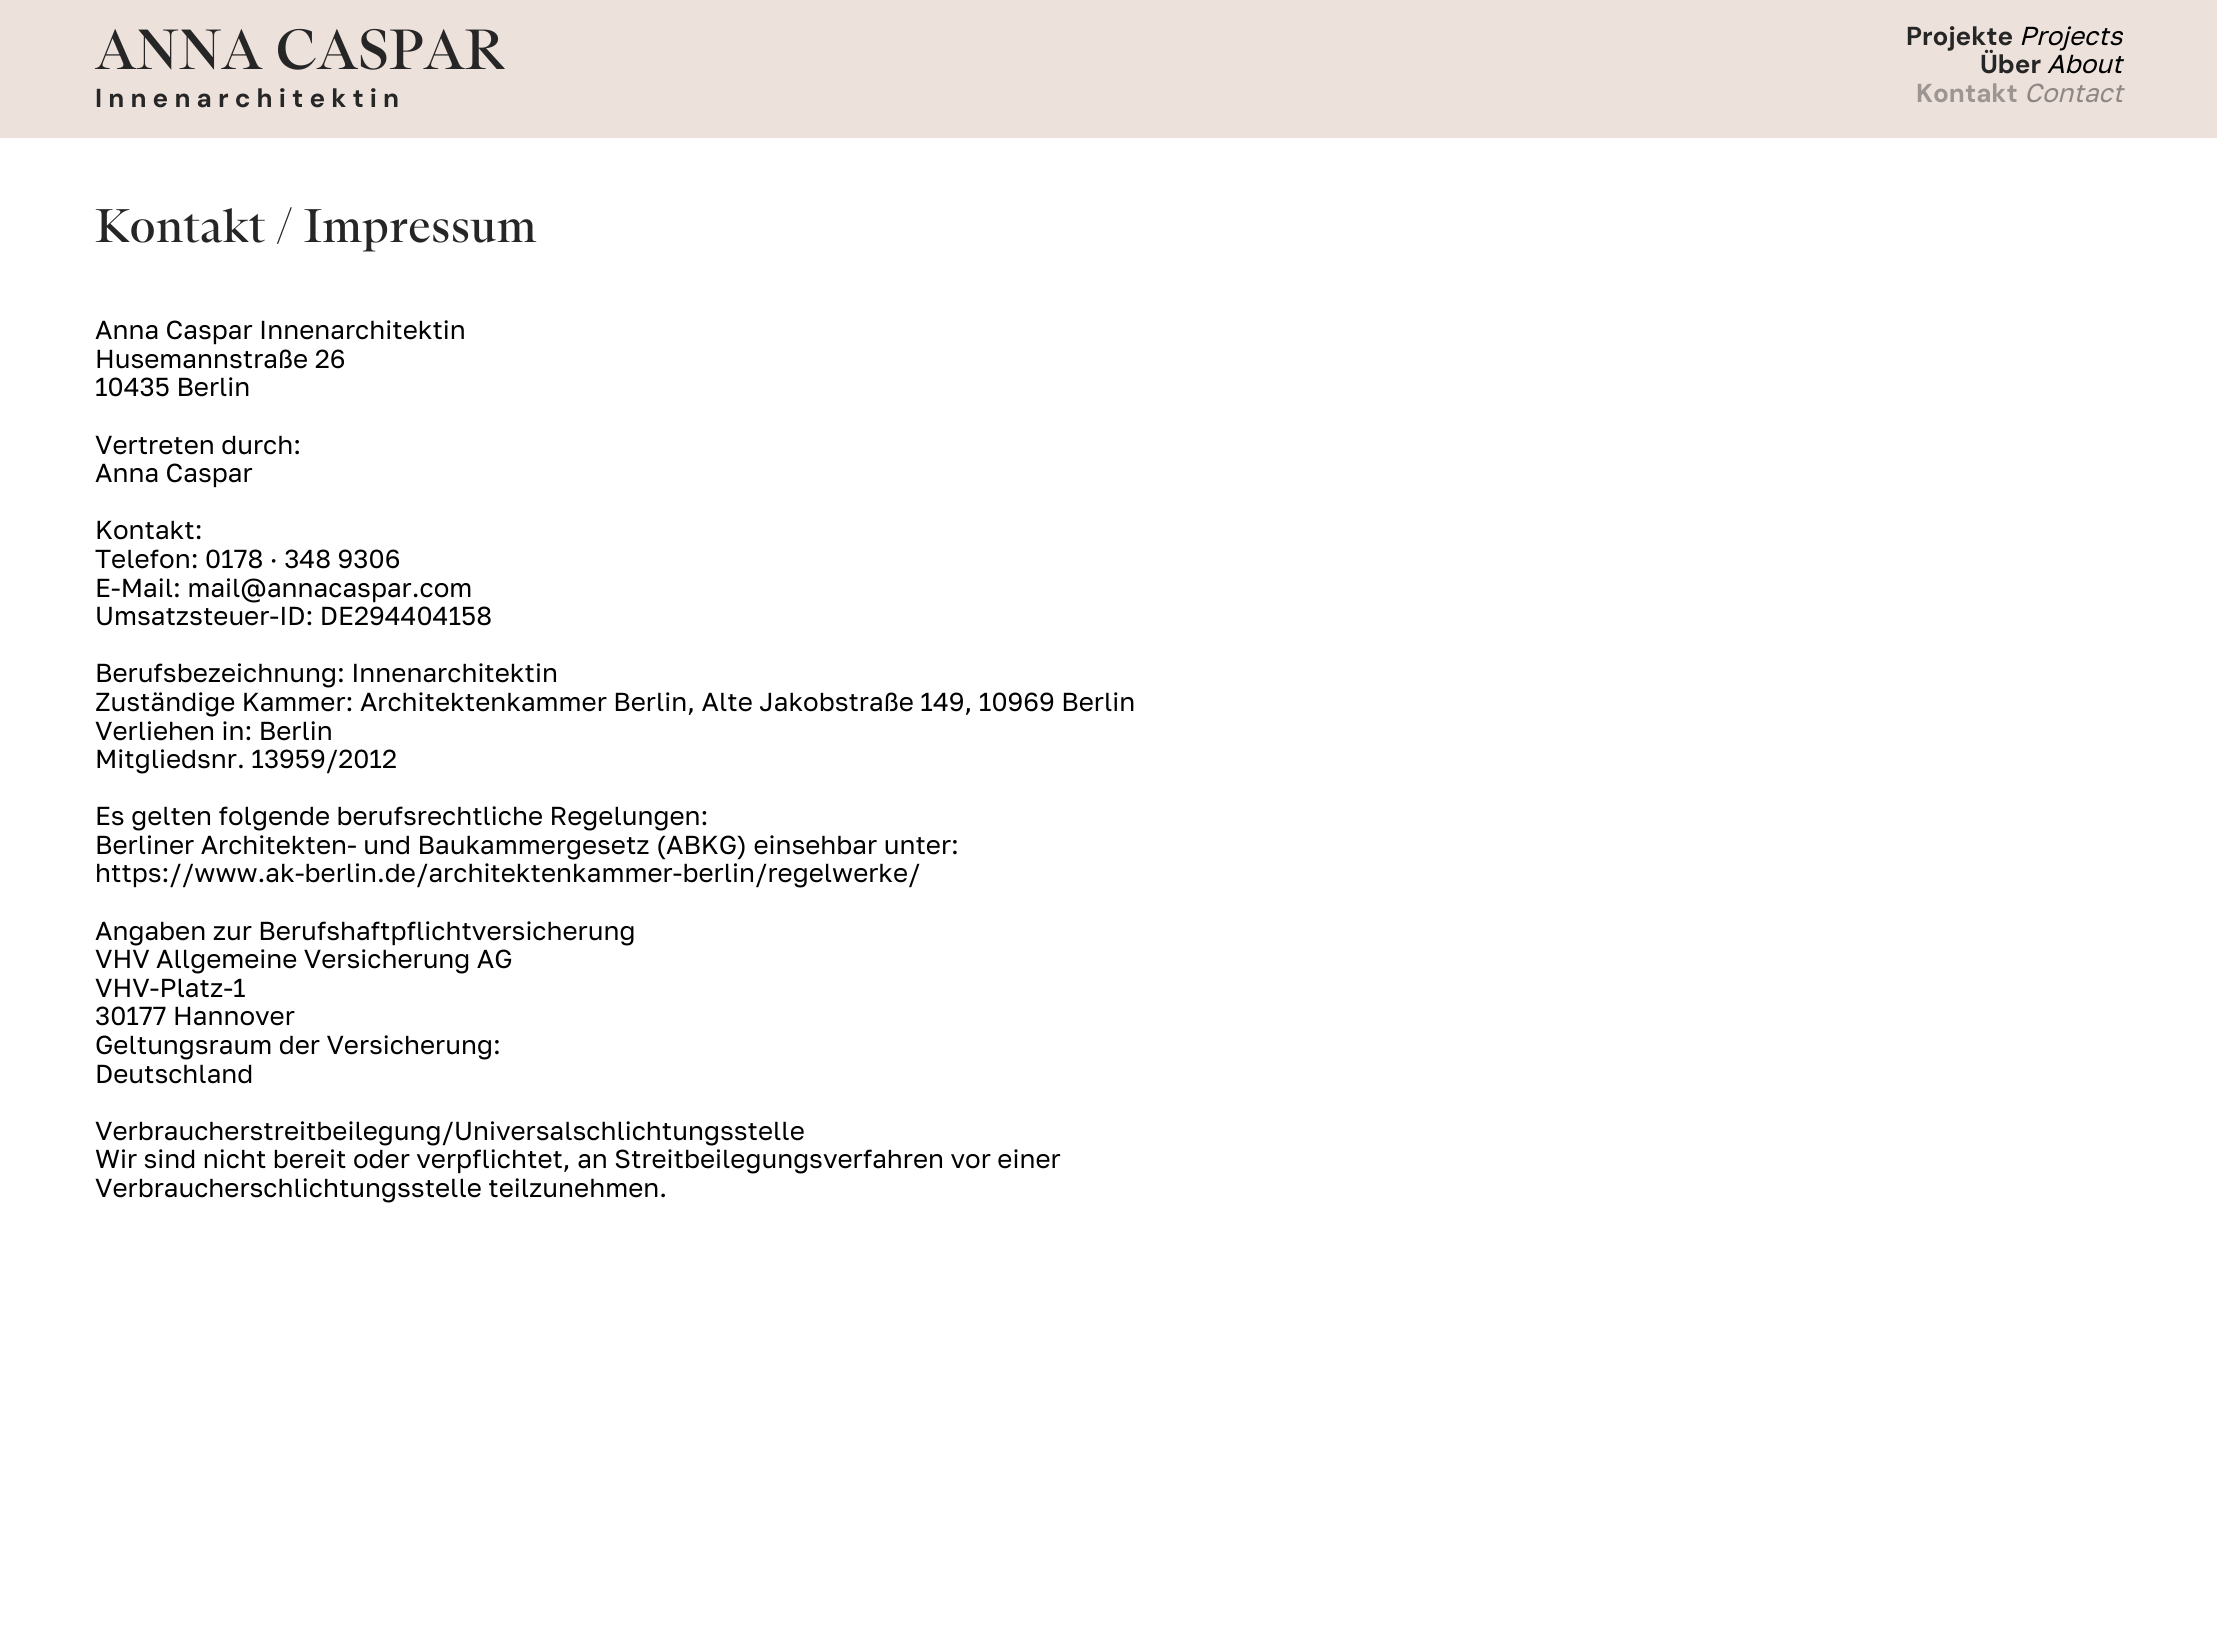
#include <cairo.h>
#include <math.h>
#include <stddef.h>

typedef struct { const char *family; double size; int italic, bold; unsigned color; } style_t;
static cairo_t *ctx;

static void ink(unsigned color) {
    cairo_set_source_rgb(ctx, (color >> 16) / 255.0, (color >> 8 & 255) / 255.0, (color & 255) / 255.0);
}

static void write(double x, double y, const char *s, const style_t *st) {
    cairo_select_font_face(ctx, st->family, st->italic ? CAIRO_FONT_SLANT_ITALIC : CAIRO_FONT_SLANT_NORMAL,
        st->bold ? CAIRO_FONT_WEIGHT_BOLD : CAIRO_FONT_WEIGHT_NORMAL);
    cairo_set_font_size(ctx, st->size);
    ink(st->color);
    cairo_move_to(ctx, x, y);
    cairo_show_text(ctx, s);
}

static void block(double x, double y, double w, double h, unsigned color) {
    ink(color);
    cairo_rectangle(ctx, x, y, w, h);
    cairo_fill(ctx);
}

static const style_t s1 = {"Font", 56.75, 0, 0, 0x262626};
static const style_t s2 = {"DM Sans", 26, 0, 1, 0x262626};
static const style_t s3 = {"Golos", 26, 1, 0, 0x000000};
static const style_t s4 = {"DM Sans", 26, 0, 1, 0x9c9591};
static const style_t s5 = {"Golos", 26, 1, 0, 0x8e8784};
static const style_t s6 = {"Font", 47.25, 0, 0, 0x262626};
static const style_t s7 = {"Golos", 26, 0, 0, 0x000000};

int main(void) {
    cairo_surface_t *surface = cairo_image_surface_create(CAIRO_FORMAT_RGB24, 2217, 1640);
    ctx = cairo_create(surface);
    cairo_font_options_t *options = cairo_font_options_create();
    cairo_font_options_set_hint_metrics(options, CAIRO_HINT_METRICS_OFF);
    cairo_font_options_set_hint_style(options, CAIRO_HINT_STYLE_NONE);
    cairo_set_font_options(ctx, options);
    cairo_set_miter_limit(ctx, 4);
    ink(0xffffff);
    cairo_paint(ctx);
    block(0, 0, 2217, 138, 0xede1dc);
    write(95, 69, "ANNA CASPAR", &s1);
    write(95, 107, "I n n e n a r c h i t e k t i n", &s2);
    write(1906, 45, "Projekte", &s2);
    write(2019, 45, "Projects", &s3);
    write(1980, 73, "Über", &s2);
    write(2047, 73, "About", &s3);
    write(1916, 102, "Kontakt", &s4);
    write(2024, 102, "Contact", &s5);
    write(95, 242, "Kontakt / Impressum", &s6);
    write(95, 339, "Anna Caspar Innenarchitektin", &s7);
    write(95, 368, "Husemannstraße 26", &s7);
    write(95, 396, "10435 Berlin", &s7);
    write(95, 454, "Vertreten durch:", &s7);
    write(95, 482, "Anna Caspar", &s7);
    write(95, 539, "Kontakt:", &s7);
    write(95, 568, "Telefon: 0178 · 348 9306", &s7);
    write(95, 597, "E-Mail: mail@annacaspar.com", &s7);
    write(95, 625, "Umsatzsteuer-ID: DE294404158", &s7);
    write(95, 682, "Berufsbezeichnung: Innenarchitektin", &s7);
    write(95, 711, "Zuständige Kammer: Architektenkammer Berlin, Alte Jakobstraße 149, 10969 Berlin", &s7);
    write(95, 740, "Verliehen in: Berlin", &s7);
    write(95, 768, "Mitgliedsnr. 13959/2012", &s7);
    write(95, 825, "Es gelten folgende berufsrechtliche Regelungen:", &s7);
    write(95, 854, "Berliner Architekten- und Baukammergesetz (ABKG) einsehbar unter:", &s7);
    write(95, 882, "https://www.ak-berlin.de/architektenkammer-berlin/regelwerke/", &s7);
    write(95, 940, "Angaben zur Berufshaftpflichtversicherung", &s7);
    write(95, 968, "VHV Allgemeine Versicherung AG", &s7);
    write(95, 997, "VHV-Platz-1", &s7);
    write(95, 1025, "30177 Hannover", &s7);
    write(95, 1054, "Geltungsraum der Versicherung:", &s7);
    write(95, 1083, "Deutschland", &s7);
    write(95, 1140, "Verbraucherstreitbeilegung/Universalschlichtungsstelle", &s7);
    write(95, 1168, "Wir sind nicht bereit oder verpflichtet, an Streitbeilegungsverfahren vor einer", &s7);
    write(95, 1197, "Verbraucherschlichtungsstelle teilzunehmen.", &s7);
    cairo_surface_write_to_png(surface, "screenshot.png");
    cairo_font_options_destroy(options);
    cairo_destroy(ctx);
    cairo_surface_destroy(surface);
    return 0;
}
